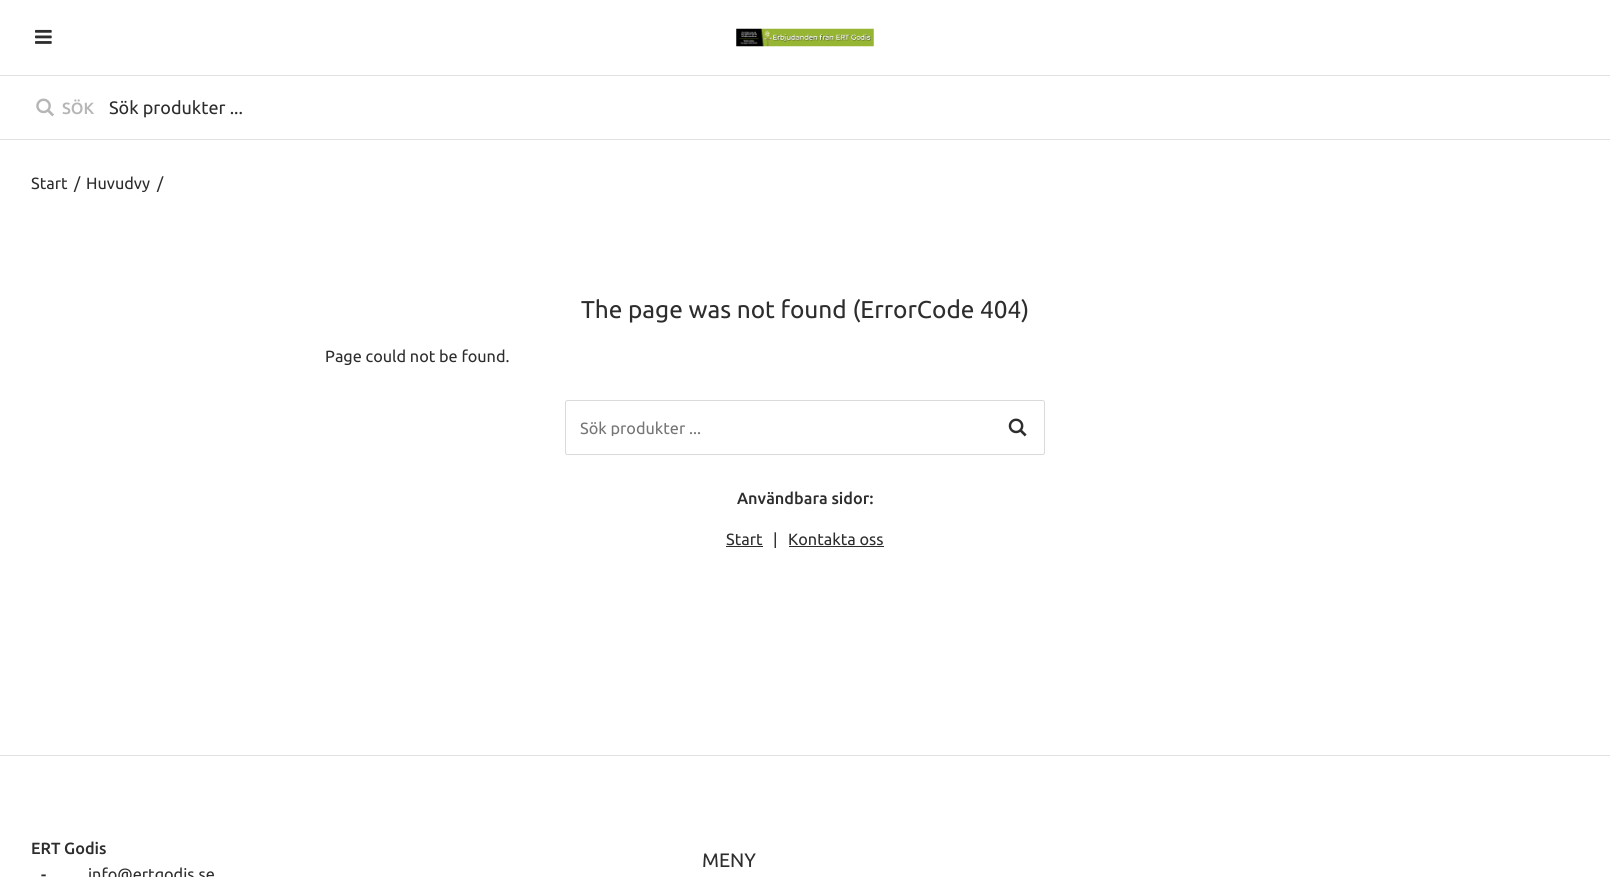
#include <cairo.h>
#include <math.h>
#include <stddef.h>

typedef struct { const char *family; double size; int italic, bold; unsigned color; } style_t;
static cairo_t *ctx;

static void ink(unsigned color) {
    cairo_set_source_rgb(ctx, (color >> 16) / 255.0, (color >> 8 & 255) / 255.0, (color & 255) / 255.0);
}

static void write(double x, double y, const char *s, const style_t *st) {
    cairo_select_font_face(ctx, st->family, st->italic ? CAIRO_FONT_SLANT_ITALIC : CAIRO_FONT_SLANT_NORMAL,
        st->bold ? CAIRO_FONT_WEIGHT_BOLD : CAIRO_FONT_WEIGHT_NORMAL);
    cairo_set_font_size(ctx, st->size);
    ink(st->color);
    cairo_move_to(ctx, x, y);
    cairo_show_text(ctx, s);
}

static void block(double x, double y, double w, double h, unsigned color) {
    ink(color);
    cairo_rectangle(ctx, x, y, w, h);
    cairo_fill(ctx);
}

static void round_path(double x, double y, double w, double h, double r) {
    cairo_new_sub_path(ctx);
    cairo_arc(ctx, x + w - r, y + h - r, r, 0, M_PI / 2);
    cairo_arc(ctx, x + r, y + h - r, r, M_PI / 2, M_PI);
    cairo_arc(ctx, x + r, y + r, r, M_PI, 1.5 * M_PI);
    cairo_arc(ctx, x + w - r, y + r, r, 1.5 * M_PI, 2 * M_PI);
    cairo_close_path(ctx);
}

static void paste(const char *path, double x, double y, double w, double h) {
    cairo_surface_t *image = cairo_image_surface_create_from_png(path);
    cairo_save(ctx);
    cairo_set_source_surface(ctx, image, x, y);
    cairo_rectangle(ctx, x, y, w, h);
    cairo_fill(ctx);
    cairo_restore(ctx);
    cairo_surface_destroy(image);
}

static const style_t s1 = {"Ubuntu Medium", 16.25, 0, 0, 0xb6b6b6};
static const style_t s2 = {"Ubuntu", 18, 0, 0, 0x2d2d2d};
static const style_t s3 = {"Ubuntu", 16.25, 0, 0, 0x2d2d2d};
static const style_t s4 = {"Ubuntu", 24.4, 0, 0, 0x2d2d2d};
static const style_t s5 = {"Ubuntu", 16.25, 0, 0, 0x757575};
static const style_t s6 = {"Ubuntu Medium", 16.25, 0, 0, 0x2d2d2d};
static const style_t s7 = {"Ubuntu", 19.5, 0, 0, 0x2d2d2d};

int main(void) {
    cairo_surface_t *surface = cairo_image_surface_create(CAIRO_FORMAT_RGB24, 1610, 877);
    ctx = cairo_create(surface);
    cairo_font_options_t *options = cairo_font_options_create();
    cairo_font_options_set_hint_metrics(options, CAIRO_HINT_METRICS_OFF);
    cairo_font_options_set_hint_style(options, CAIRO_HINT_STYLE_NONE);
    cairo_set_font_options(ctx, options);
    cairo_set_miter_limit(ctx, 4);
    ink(0xffffff);
    cairo_paint(ctx);
    block(0, 75, 1610, 1, 0xe1e1e1);
    paste("pic1.png", 35, 29, 17, 15);
    paste("pic2.png", 736, 28, 138, 19);
    block(0, 139, 1610, 1, 0xe1e1e1);
    paste("pic3.png", 36, 98, 18, 19);
    write(62, 114, "SÖK", &s1);
    write(109, 114, "Sök produkter ...", &s2);
    write(31, 189, "Start", &s3);
    write(74, 189, "/", &s3);
    write(86, 189, "Huvudvy", &s3);
    write(157, 189, "/", &s3);
    write(581, 318, "The page was not found (ErrorCode 404)", &s4);
    write(325, 362, "Page could not be found.", &s3);
    round_path(565.5, 400.5, 479, 54, 2);
    ink(0xdadada);
    cairo_set_line_width(ctx, 1);
    cairo_stroke(ctx);
    cairo_save(ctx);
    cairo_rectangle(ctx, 580, 419, 409, 17);
    cairo_clip(ctx);
    write(580, 434, "Sök produkter ...", &s5);
    cairo_restore(ctx);
    paste("pic4.png", 1008, 418, 19, 19);
    write(737, 504, "Användbara sidor:", &s6);
    write(726, 545, "Start", &s3);
    block(726, 546, 37, 1, 0x2d2d2d);
    write(773, 545, "|", &s3);
    write(788, 545, "Kontakta oss", &s3);
    block(789, 546, 95, 1, 0x2d2d2d);
    block(0, 755, 1610, 1, 0xe1e1e1);
    write(31, 854, "ERT Godis", &s6);
    write(41, 880, "-", &s6);
    write(88, 880, "info@ertgodis.se", &s3);
    write(702, 867, "MENY", &s7);
    cairo_surface_write_to_png(surface, "screenshot.png");
    cairo_font_options_destroy(options);
    cairo_destroy(ctx);
    cairo_surface_destroy(surface);
    return 0;
}
